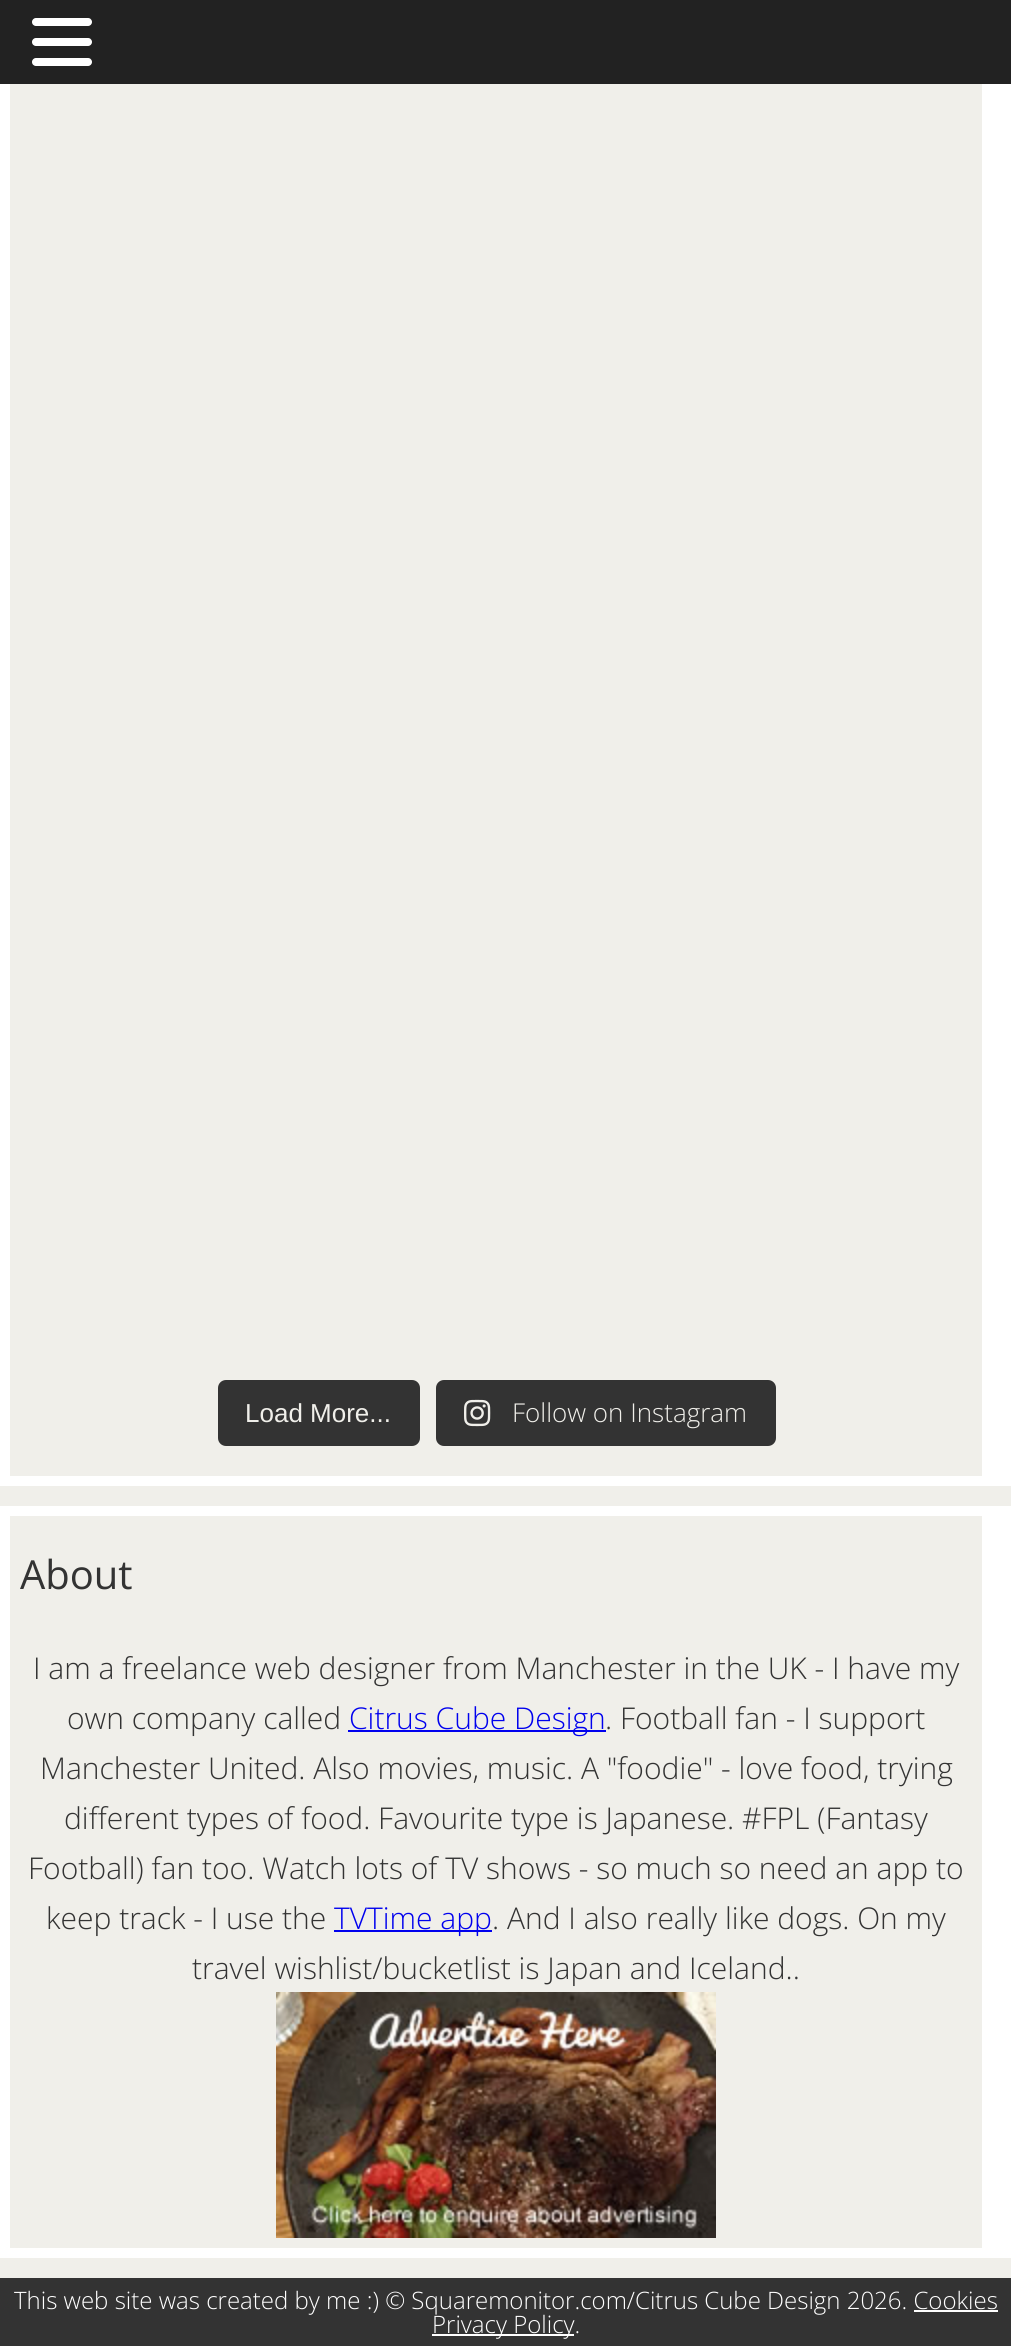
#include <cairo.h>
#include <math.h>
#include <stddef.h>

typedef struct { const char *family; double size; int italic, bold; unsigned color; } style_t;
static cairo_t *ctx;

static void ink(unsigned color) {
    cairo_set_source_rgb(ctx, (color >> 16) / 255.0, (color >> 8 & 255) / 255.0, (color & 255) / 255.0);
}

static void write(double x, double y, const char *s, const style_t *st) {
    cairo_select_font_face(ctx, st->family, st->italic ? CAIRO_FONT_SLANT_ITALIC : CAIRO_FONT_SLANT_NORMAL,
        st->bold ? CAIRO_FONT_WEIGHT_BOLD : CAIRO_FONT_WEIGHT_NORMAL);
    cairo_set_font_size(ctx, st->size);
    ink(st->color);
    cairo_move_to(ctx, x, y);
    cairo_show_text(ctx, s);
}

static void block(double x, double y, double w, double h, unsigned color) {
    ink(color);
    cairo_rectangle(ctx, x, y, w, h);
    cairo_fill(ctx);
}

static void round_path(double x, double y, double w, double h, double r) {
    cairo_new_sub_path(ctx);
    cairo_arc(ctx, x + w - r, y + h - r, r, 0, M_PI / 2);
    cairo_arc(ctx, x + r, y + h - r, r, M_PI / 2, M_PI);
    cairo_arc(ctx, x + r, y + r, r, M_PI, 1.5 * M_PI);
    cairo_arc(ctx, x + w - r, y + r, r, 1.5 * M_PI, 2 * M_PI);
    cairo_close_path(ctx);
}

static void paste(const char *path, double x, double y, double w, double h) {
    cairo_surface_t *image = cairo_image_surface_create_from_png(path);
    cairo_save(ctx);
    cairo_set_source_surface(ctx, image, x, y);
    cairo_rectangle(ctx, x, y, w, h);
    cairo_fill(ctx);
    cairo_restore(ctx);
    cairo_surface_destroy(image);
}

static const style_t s1 = {"Liberation Sans", 26, 0, 0, 0xf0efea};
static const style_t s2 = {"Open Sans Light", 26, 0, 0, 0xf0efea};
static const style_t s3 = {"Open Sans", 40, 0, 0, 0x333333};
static const style_t s4 = {"Open Sans Light", 30, 0, 0, 0x333333};
static const style_t s5 = {"Open Sans Light", 30, 0, 0, 0x0000ee};
static const style_t s6 = {"Open Sans Light", 24, 0, 0, 0xffffff};

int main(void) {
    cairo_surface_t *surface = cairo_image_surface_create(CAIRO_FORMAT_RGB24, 1011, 2346);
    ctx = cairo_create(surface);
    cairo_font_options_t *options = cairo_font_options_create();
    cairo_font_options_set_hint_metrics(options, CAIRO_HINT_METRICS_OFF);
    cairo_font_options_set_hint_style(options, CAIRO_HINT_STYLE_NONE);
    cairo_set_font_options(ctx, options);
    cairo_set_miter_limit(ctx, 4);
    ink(0xf0efea);
    cairo_paint(ctx);
    block(0, 0, 1011, 84, 0x222222);
    ink(0xffffff);
    round_path(32, 18, 60, 8, 4);
    cairo_fill(ctx);
    round_path(32, 38, 60, 8, 4);
    cairo_fill(ctx);
    round_path(32, 58, 60, 8, 4);
    cairo_fill(ctx);
    block(0, 84, 1011, 1402, 0xffffff);
    block(10, 84, 972, 1392, 0xf0efea);
    ink(0x333333);
    round_path(218, 1380, 202, 66, 8);
    cairo_fill(ctx);
    write(245, 1422, "Load More...", &s1);
    ink(0x333333);
    round_path(436, 1380, 340, 66, 8);
    cairo_fill(ctx);
    paste("pic1.png", 464, 1399, 27, 28);
    write(512, 1422, "Follow on Instagram", &s2);
    block(0, 1506, 1011, 752, 0xffffff);
    block(10, 1516, 972, 732, 0xf0efea);
    write(20, 1589, "About", &s3);
    write(33, 1679, "I am a freelance web designer from Manchester in the UK - I have my", &s4);
    write(67, 1729, "own company called", &s4);
    block(348, 1730, 258, 2, 0x0000ee);
    write(349, 1729, "Citrus Cube Design", &s5);
    write(605, 1729, ". Football fan - I support", &s4);
    write(40, 1779, "Manchester United. Also movies, music. A \"foodie\" - love food, trying", &s4);
    write(64, 1829, "different types of food. Favourite type is Japanese. #FPL (Fantasy", &s4);
    write(28, 1879, "Football) fan too. Watch lots of TV shows - so much so need an app to", &s4);
    write(46, 1929, "keep track - I use the", &s4);
    block(334, 1930, 158, 2, 0x0000ee);
    write(334, 1929, "TVTime app", &s5);
    write(492, 1929, ". And I also really like dogs. On my", &s4);
    write(192, 1979, "travel wishlist/bucketlist is Japan and Iceland..", &s4);
    paste("pic2.png", 276, 1992, 440, 246);
    block(0, 2278, 1011, 68, 0x333333);
    write(14, 2309, "This web site was created by me :) © Squaremonitor.com/Citrus Cube Design 2026. Cookies", &s6);
    block(914, 2310, 84, 2, 0xffffff);
    block(432, 2334, 142, 2, 0xffffff);
    write(432, 2333, "Privacy Policy.", &s6);
    cairo_surface_write_to_png(surface, "screenshot.png");
    cairo_font_options_destroy(options);
    cairo_destroy(ctx);
    cairo_surface_destroy(surface);
    return 0;
}
